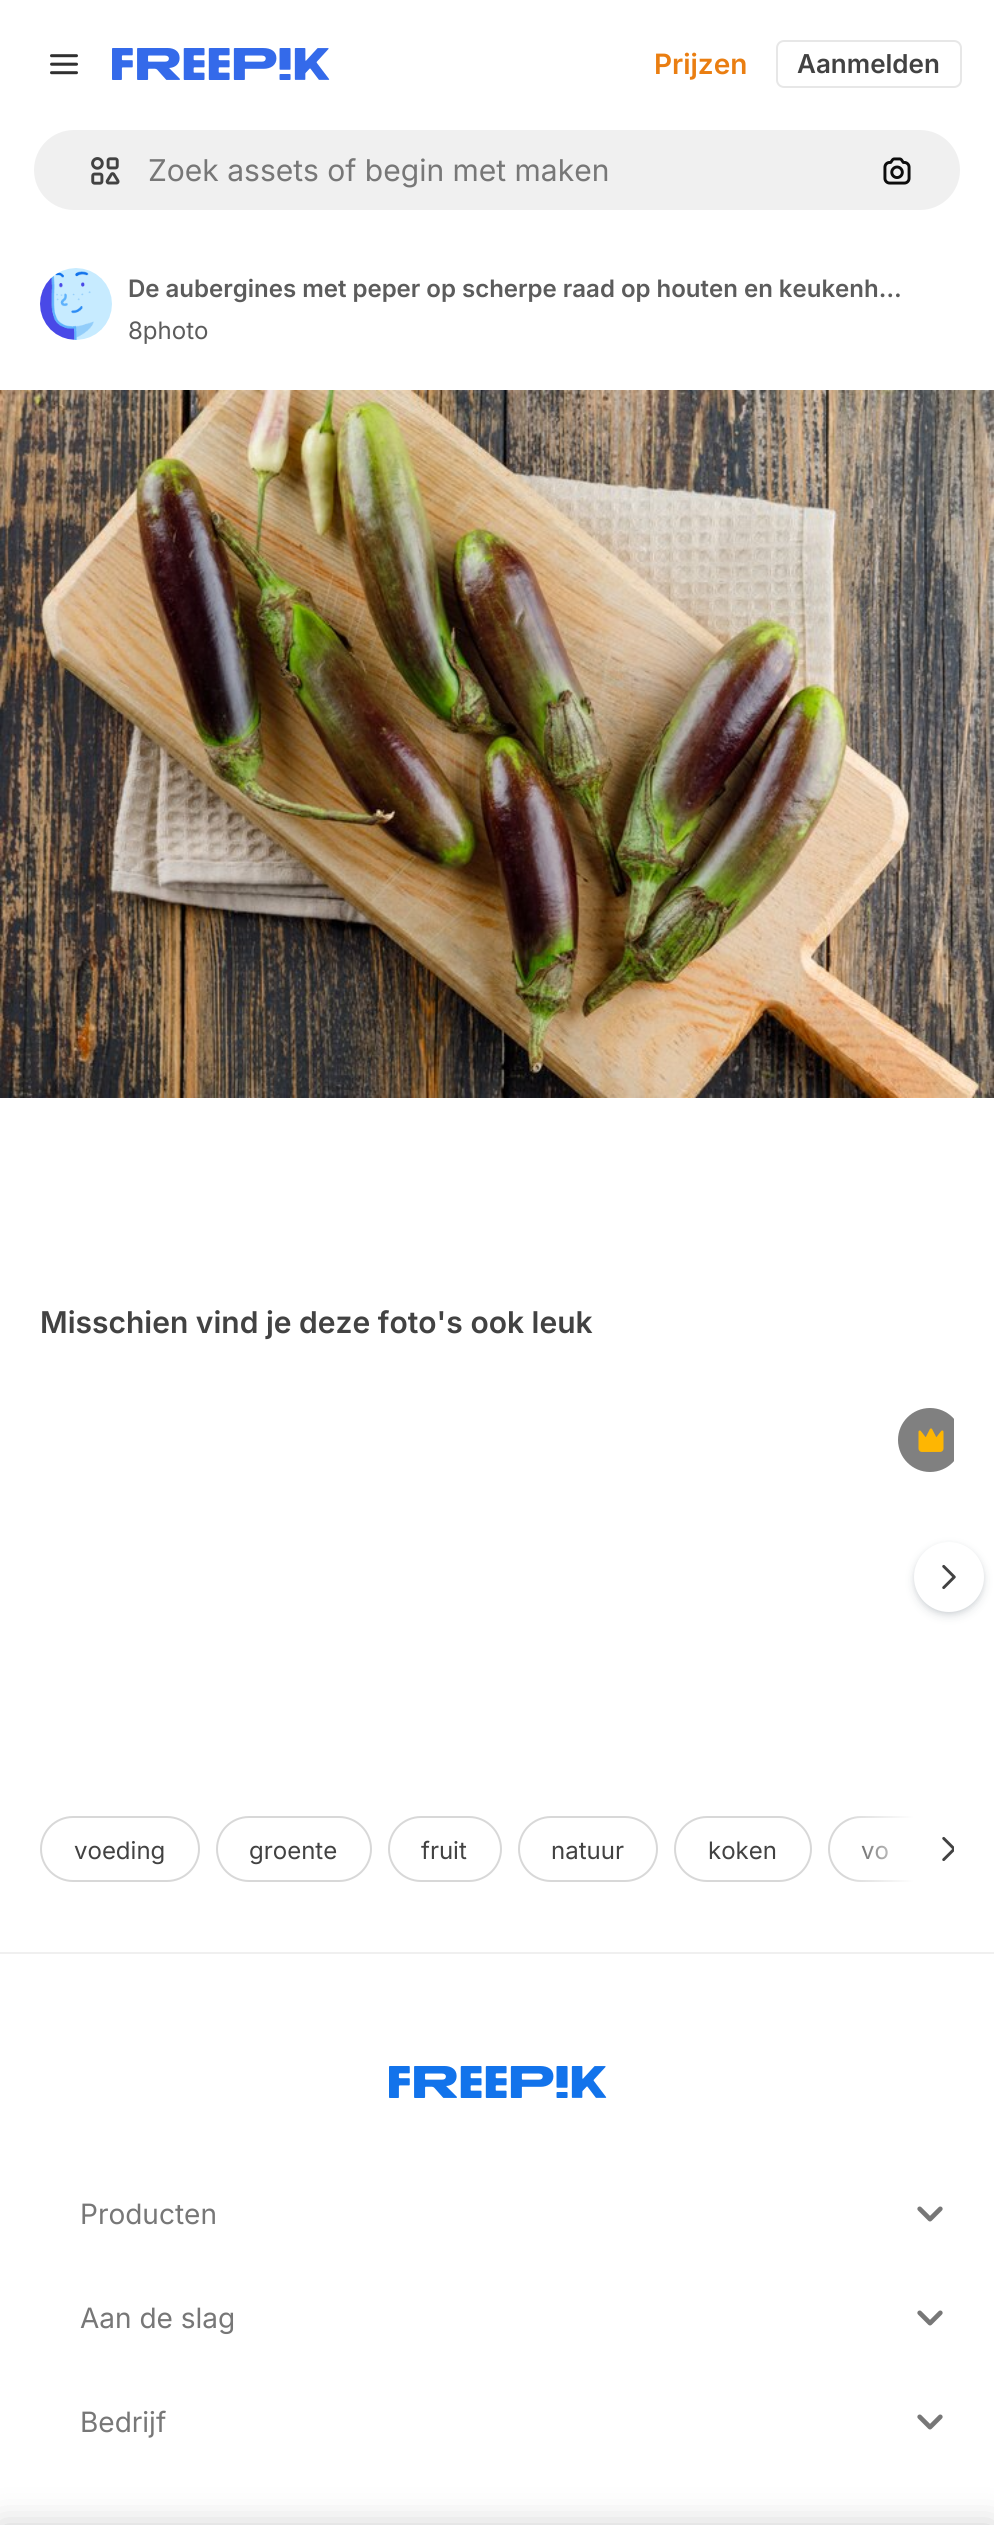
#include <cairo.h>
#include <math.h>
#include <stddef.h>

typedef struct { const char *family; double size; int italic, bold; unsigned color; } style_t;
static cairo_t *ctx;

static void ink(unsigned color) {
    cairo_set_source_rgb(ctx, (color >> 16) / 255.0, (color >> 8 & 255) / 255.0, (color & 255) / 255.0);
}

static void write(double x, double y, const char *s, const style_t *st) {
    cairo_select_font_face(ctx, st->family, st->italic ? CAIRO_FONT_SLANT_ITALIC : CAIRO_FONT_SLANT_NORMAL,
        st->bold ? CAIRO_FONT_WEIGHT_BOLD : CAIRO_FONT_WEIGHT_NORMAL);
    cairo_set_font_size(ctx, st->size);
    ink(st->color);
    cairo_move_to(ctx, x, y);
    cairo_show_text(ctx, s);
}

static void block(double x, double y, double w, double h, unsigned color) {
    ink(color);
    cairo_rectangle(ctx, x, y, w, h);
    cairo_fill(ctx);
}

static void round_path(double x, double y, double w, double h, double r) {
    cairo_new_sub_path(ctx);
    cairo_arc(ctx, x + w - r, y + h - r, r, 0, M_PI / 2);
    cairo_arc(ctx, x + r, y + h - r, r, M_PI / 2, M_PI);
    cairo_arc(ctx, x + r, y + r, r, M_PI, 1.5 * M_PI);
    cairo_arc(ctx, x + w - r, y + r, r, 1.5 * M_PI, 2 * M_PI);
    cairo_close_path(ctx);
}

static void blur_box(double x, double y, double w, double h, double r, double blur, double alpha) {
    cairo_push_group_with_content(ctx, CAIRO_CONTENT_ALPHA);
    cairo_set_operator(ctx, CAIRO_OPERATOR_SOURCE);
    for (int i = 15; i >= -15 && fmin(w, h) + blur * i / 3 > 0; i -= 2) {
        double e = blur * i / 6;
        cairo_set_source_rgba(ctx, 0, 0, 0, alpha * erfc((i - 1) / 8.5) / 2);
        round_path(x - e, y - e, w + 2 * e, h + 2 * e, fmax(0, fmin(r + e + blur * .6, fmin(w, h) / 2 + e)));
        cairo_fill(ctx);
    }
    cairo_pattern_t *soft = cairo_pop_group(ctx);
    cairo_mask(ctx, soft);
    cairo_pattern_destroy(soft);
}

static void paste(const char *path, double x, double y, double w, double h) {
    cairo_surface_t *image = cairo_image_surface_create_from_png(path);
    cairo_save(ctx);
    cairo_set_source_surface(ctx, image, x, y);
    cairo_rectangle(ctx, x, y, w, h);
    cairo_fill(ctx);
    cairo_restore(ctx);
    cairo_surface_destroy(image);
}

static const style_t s1 = {"Inter SemiBold", 28, 0, 0, 0xea7e11};
static const style_t s2 = {"Inter SemiBold", 26, 0, 0, 0x424242};
static const style_t s3 = {"Inter", 30, 0, 0, 0x777777};
static const style_t s4 = {"Inter SemiBold", 24, 0, 0, 0x5c5c5c};
static const style_t s5 = {"Inter", 24, 0, 0, 0x5c5c5c};
static const style_t s6 = {"Inter SemiBold", 30, 0, 0, 0x424242};
static const style_t s7 = {"Inter", 24, 0, 0, 0x424242};
static const style_t s8 = {"Inter", 28, 0, 0, 0x777777};

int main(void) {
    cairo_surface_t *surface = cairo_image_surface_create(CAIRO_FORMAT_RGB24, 994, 2525);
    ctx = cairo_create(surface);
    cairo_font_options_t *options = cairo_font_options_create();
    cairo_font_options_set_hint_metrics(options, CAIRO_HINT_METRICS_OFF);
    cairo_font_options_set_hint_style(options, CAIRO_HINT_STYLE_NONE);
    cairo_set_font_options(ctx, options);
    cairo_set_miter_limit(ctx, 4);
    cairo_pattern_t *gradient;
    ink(0xffffff);
    cairo_paint(ctx);
    paste("pic1.png", 50, 54, 28, 21);
    paste("pic2.png", 112, 48, 218, 32);
    write(654, 74, "Prijzen", &s1);
    round_path(777, 41, 184, 46, 7);
    ink(0xe7e7e7);
    cairo_stroke(ctx);
    write(797, 73, "Aanmelden", &s2);
    ink(0xf0f0f0);
    round_path(33, 129, 928, 82, 41);
    cairo_fill_preserve(ctx);
    ink(0xffffff);
    cairo_stroke(ctx);
    paste("pic3.png", 91, 157, 29, 28);
    write(148, 181, "Zoek assets of begin met maken", &s3);
    paste("pic4.png", 883, 157, 28, 28);
    paste("pic5.png", 40, 268, 72, 72);
    write(128, 297, "De aubergines met peper op scherpe raad op houten en keukenh…", &s4);
    write(128, 339, "8photo", &s5);
    paste("pic6.png", 0, 390, 994, 708);
    write(40, 1333, "Misschien vind je deze foto's ook leuk", &s6);
    cairo_save(ctx);
    cairo_rectangle(ctx, 40, 1376, 914, 400);
    cairo_clip(ctx);
    ink(0x808080);
    cairo_arc(ctx, 930, 1440, 32, 0, 2 * M_PI);
    cairo_fill(ctx);
    cairo_restore(ctx);
    paste("pic7.png", 918, 1428, 26, 24);
    ink(0x374957);
    blur_box(914, 1546, 70, 70, 35, 5, 0.15);
    blur_box(914, 1544, 70, 70, 35, 2, 0.1);
    ink(0xffffff);
    cairo_arc(ctx, 949, 1577, 35, 0, 2 * M_PI);
    cairo_fill(ctx);
    paste("pic8.png", 942, 1564, 14, 26);
    round_path(41, 1817, 158, 64, 32);
    ink(0xd8d8d8);
    cairo_stroke(ctx);
    write(74, 1859, "voeding", &s7);
    round_path(217, 1817, 154, 64, 32);
    ink(0xd8d8d8);
    cairo_stroke(ctx);
    write(249, 1859, "groente", &s7);
    round_path(389, 1817, 112, 64, 32);
    ink(0xd8d8d8);
    cairo_stroke(ctx);
    write(421, 1859, "fruit", &s7);
    round_path(519, 1817, 138, 64, 32);
    ink(0xd8d8d8);
    cairo_stroke(ctx);
    write(551, 1859, "natuur", &s7);
    round_path(675, 1817, 136, 64, 32);
    ink(0xd8d8d8);
    cairo_stroke(ctx);
    write(708, 1859, "koken", &s7);
    cairo_save(ctx);
    cairo_rectangle(ctx, 40, 1816, 914, 66);
    cairo_clip(ctx);
    round_path(829, 1817, 154, 64, 32);
    ink(0xd8d8d8);
    cairo_stroke(ctx);
    cairo_restore(ctx);
    write(861, 1859, "vo", &s7);
    block(914, 1816, 40, 66, 0xffffff);
    gradient = cairo_pattern_create_linear(914, 1849, 844, 1849);
    cairo_pattern_add_color_stop_rgba(gradient, 0, 1, 1, 1, 1);
    cairo_pattern_add_color_stop_rgba(gradient, 1, 1, 1, 1, 0);
    cairo_set_source(ctx, gradient);
    cairo_pattern_destroy(gradient);
    cairo_rectangle(ctx, 849, 1816, 65, 66);
    cairo_fill(ctx);
    paste("pic9.png", 942, 1836, 12, 26);
    block(0, 1952, 994, 2, 0xf0f0f0);
    paste("pic10.png", 389, 2066, 218, 32);
    write(80, 2224, "Producten", &s8);
    paste("pic11.png", 917, 2206, 26, 16);
    write(80, 2328, "Aan de slag", &s8);
    paste("pic11.png", 917, 2310, 26, 16);
    write(80, 2432, "Bedrijf", &s8);
    paste("pic11.png", 917, 2414, 26, 16);
    ink(0x000000);
    blur_box(0, 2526, 994, 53, 0, 18, 0.2);
    cairo_surface_write_to_png(surface, "screenshot.png");
    cairo_font_options_destroy(options);
    cairo_destroy(ctx);
    cairo_surface_destroy(surface);
    return 0;
}
